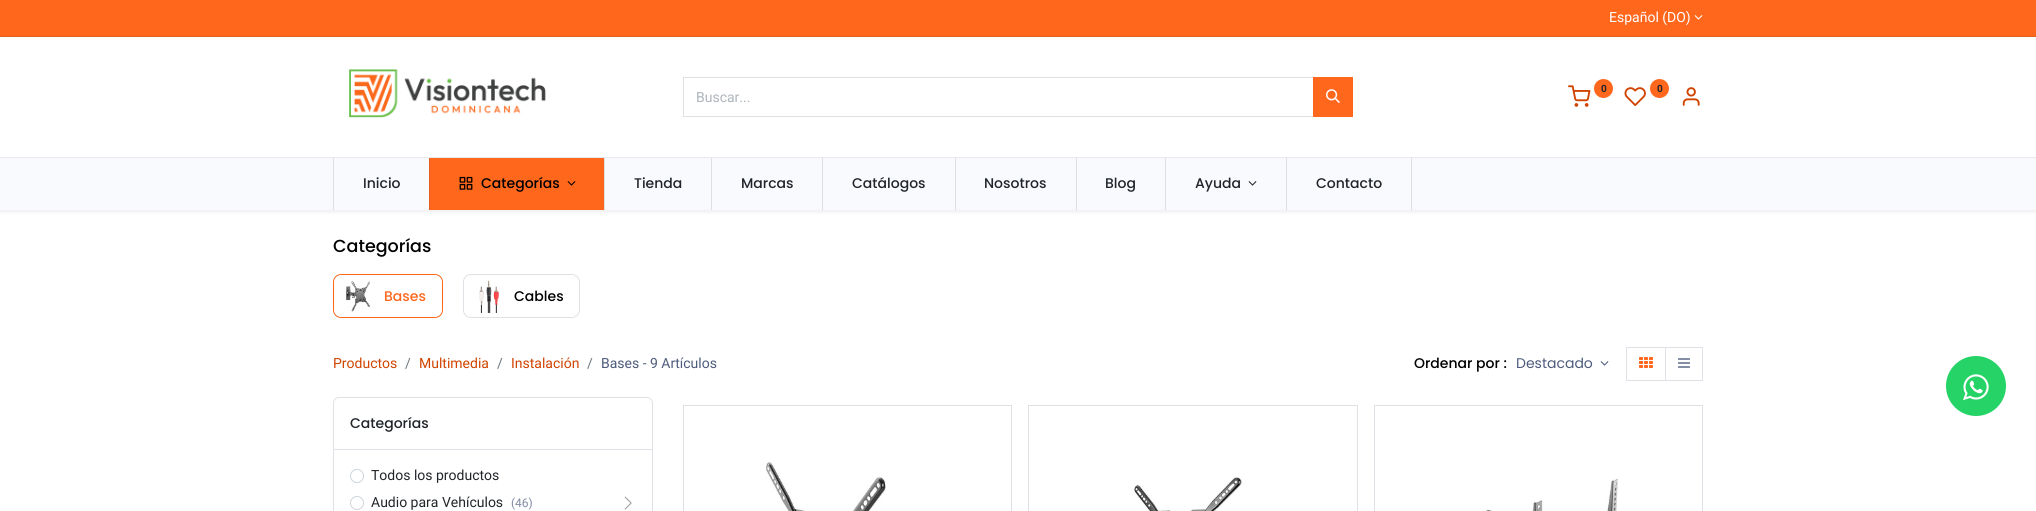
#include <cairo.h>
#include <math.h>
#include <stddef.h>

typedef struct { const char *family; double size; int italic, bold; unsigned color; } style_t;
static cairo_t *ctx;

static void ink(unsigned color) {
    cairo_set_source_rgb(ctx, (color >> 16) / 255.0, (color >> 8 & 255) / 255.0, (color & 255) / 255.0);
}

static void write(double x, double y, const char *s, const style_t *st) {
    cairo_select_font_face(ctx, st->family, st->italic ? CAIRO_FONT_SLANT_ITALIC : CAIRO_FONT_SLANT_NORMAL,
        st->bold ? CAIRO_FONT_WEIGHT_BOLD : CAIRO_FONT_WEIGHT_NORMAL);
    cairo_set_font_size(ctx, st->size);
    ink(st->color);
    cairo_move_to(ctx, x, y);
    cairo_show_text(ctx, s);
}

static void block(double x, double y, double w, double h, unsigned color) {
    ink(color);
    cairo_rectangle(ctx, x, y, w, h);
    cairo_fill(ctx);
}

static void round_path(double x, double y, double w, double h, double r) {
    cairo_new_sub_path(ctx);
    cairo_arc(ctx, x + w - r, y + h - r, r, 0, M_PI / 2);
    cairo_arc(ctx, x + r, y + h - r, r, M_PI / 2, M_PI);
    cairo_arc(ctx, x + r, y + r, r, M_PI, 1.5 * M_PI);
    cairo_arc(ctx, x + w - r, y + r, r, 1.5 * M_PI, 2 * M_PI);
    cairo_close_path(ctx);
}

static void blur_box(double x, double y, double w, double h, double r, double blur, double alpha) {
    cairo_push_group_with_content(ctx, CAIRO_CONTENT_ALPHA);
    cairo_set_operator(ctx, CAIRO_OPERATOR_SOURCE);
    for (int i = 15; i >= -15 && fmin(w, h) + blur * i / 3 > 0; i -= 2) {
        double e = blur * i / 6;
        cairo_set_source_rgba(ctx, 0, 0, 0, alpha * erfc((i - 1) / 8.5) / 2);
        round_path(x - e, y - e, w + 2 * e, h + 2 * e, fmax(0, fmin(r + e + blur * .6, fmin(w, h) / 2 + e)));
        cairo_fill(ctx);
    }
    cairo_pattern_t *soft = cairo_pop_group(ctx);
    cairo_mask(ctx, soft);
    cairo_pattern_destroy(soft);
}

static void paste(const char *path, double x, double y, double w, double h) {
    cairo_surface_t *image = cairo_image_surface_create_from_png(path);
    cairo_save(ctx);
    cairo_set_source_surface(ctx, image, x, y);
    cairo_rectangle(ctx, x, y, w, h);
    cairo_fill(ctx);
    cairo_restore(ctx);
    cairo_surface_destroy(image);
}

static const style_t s1 = {"Roboto", 14, 0, 0, 0xffffff};
static const style_t s2 = {"Roboto", 10, 0, 1, 0x212529};
static const style_t s3 = {"Roboto", 14, 0, 0, 0xadb5bd};
static const style_t s4 = {"Poppins Medium", 14, 0, 0, 0x212529};
static const style_t s5 = {"Poppins Medium", 14, 0, 0, 0x000000};
static const style_t s6 = {"Poppins Medium", 17.5, 0, 0, 0x000000};
static const style_t s7 = {"Poppins Medium", 14, 0, 0, 0xff671d};
static const style_t s8 = {"Roboto", 14, 0, 0, 0xd04400};
static const style_t s9 = {"Roboto", 14, 0, 0, 0x6c757d};
static const style_t s10 = {"Roboto", 14, 0, 0, 0x4d5b7c};
static const style_t s11 = {"Poppins", 14, 0, 0, 0x4d5b7c};
static const style_t s12 = {"Roboto", 14, 0, 0, 0x212529};
static const style_t s13 = {"Roboto", 12, 0, 0, 0x828ca3};

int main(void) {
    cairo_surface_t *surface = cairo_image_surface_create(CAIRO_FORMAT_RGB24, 2036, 511);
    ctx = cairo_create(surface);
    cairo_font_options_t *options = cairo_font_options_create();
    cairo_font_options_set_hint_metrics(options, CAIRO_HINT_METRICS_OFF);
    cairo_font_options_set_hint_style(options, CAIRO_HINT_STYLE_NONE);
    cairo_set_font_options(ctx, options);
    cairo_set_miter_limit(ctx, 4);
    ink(0xffffff);
    cairo_paint(ctx);
    block(0, 0, 2036, 36, 0xff671d);
    block(0, 36, 2036, 1, 0xe45f1e);
    write(1609, 22, "Español (DO)", &s1);
    paste("pic1.png", 1694, 15, 9, 5);
    block(0, 157, 2036, 1, 0xeaebef);
    paste("pic2.png", 349, 69, 197, 49);
    paste("pic3.png", 1568, 85, 23, 22);
    ink(0xff671d);
    cairo_arc(ctx, 1603.5, 88.5, 9.5, 0, 2 * M_PI);
    cairo_fill(ctx);
    write(1601, 92, "0", &s2);
    paste("pic4.png", 1624, 87, 22, 19);
    ink(0xff671d);
    cairo_arc(ctx, 1659.5, 88.5, 9.5, 0, 2 * M_PI);
    cairo_fill(ctx);
    write(1657, 92, "0", &s2);
    paste("pic5.png", 1682, 87, 18, 19);
    cairo_rectangle(ctx, 683.5, 77.5, 630, 39);
    ink(0xdee2e6);
    cairo_set_line_width(ctx, 1);
    cairo_stroke(ctx);
    write(696, 102, "Buscar...", &s3);
    block(1313, 77, 40, 40, 0xff671d);
    paste("pic6.png", 1326, 89, 14, 14);
    ink(0x000000);
    blur_box(0, 160, 2036, 52, 0, 2, 0.07);
    block(0, 158, 2036, 52, 0xf9fafe);
    block(333, 158, 1, 52, 0xdfe0e4);
    write(363, 188, "Inicio", &s4);
    block(430, 158, 174, 52, 0xff671d);
    block(429, 158, 1, 52, 0xe45f1e);
    paste("pic7.png", 459, 176, 14, 14);
    write(481, 188, "Categorías", &s5);
    paste("pic8.png", 567, 181, 9, 5);
    block(604, 158, 1, 52, 0xdfe0e4);
    write(634, 188, "Tienda", &s4);
    block(711, 158, 1, 52, 0xdfe0e4);
    write(741, 188, "Marcas", &s4);
    block(822, 158, 1, 52, 0xdfe0e4);
    write(852, 188, "Catálogos", &s4);
    block(955, 158, 1, 52, 0xdfe0e4);
    write(984, 188, "Nosotros", &s4);
    block(1076, 158, 1, 52, 0xdfe0e4);
    write(1105, 188, "Blog", &s4);
    block(1165, 158, 1, 52, 0xdfe0e4);
    write(1195, 188, "Ayuda", &s4);
    paste("pic9.png", 1248, 181, 9, 5);
    block(1411, 158, 1, 52, 0xdfe0e4);
    block(1286, 158, 1, 52, 0xdfe0e4);
    write(1316, 188, "Contacto", &s4);
    write(333, 252, "Categorías", &s6);
    round_path(333.5, 274.5, 109, 43, 7.5);
    ink(0xff671d);
    cairo_stroke(ctx);
    paste("pic10.png", 346, 281, 24, 31);
    write(384, 301, "Bases", &s7);
    round_path(463.5, 274.5, 116, 43, 7.5);
    ink(0xdee2e6);
    cairo_stroke(ctx);
    paste("pic11.png", 479, 280, 21, 33);
    write(514, 301, "Cables", &s5);
    write(333, 368, "Productos", &s8);
    write(405, 368, "/", &s9);
    write(419, 368, "Multimedia", &s8);
    write(497, 368, "/", &s9);
    write(511, 368, "Instalación", &s8);
    write(587, 368, "/", &s9);
    write(601, 368, "Bases - 9 Artículos", &s10);
    write(1414, 368, "Ordenar por :", &s5);
    write(1516, 368, "Destacado", &s11);
    paste("pic12.png", 1600, 361, 9, 5);
    cairo_rectangle(ctx, 1665.5, 347.5, 37, 33);
    ink(0xdee2e6);
    cairo_stroke(ctx);
    cairo_rectangle(ctx, 1626.5, 347.5, 39, 33);
    cairo_stroke(ctx);
    paste("pic13.png", 1639, 357, 14, 11);
    paste("pic14.png", 1678, 358, 12, 10);
    round_path(333.5, 397.5, 319, 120, 5.5);
    cairo_stroke(ctx);
    write(350, 428, "Categorías", &s4);
    block(334, 449, 318, 1, 0xdee2e6);
    cairo_new_path(ctx);
    cairo_arc(ctx, 357, 476, 6.5, 0, 2 * M_PI);
    ink(0xced4da);
    cairo_stroke(ctx);
    write(371, 480, "Todos los productos", &s12);
    cairo_new_path(ctx);
    cairo_arc(ctx, 357, 503, 6.5, 0, 2 * M_PI);
    ink(0xced4da);
    cairo_stroke(ctx);
    write(371, 507, "Audio para Vehículos", &s12);
    write(511, 507, "(46)", &s13);
    paste("pic15.png", 624, 496, 8, 14);
    cairo_rectangle(ctx, 683.5, 405.5, 328, 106);
    ink(0xdee2e6);
    cairo_stroke(ctx);
    paste("pic16.png", 766, 462, 120, 49);
    cairo_rectangle(ctx, 1028.5, 405.5, 329, 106);
    cairo_stroke(ctx);
    paste("pic17.png", 1134, 477, 108, 34);
    cairo_rectangle(ctx, 1374.5, 405.5, 328, 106);
    cairo_stroke(ctx);
    paste("pic18.png", 1482, 479, 136, 32);
    ink(0x25d366);
    cairo_arc(ctx, 1976, 386, 30, 0, 2 * M_PI);
    cairo_fill(ctx);
    paste("pic19.png", 1963, 374, 26, 27);
    cairo_surface_write_to_png(surface, "screenshot.png");
    cairo_font_options_destroy(options);
    cairo_destroy(ctx);
    cairo_surface_destroy(surface);
    return 0;
}
